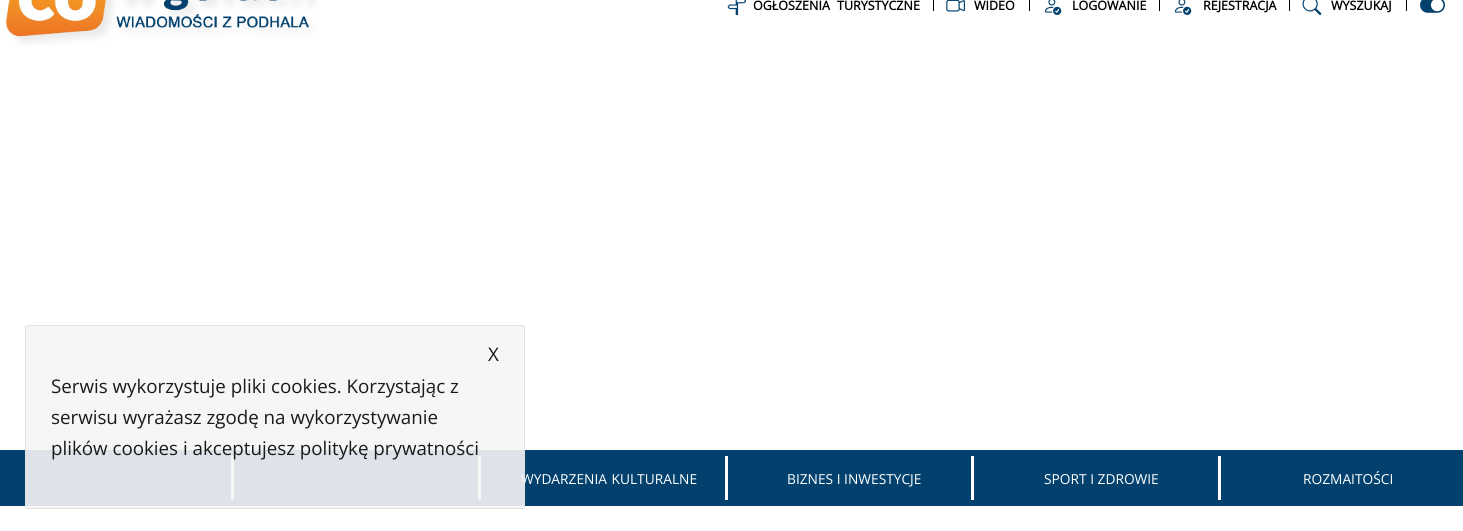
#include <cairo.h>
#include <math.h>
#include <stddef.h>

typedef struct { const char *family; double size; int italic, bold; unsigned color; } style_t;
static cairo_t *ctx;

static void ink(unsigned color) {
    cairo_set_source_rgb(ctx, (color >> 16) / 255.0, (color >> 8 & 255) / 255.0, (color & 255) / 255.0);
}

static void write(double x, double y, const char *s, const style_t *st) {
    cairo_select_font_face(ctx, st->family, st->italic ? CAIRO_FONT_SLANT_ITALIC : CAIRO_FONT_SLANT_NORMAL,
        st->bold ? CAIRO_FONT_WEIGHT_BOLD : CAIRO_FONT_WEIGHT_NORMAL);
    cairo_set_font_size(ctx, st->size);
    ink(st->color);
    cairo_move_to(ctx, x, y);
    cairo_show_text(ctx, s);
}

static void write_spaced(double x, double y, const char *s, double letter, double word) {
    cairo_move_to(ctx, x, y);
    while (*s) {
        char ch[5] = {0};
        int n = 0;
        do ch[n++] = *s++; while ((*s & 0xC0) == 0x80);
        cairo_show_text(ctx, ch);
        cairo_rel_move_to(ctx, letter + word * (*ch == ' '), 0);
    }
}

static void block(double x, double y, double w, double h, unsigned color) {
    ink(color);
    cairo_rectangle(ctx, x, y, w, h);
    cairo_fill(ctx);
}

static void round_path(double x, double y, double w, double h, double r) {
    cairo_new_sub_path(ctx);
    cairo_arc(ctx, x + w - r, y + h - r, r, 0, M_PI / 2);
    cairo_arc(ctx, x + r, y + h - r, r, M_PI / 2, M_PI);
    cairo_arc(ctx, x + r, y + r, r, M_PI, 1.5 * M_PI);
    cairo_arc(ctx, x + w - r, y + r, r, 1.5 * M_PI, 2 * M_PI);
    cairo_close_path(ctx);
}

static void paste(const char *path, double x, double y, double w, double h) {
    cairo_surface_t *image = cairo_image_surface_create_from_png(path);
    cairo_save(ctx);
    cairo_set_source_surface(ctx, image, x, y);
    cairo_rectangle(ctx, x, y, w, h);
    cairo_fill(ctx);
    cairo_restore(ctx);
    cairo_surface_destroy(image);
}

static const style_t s1 = {"Open Sans", 18.75, 0, 0, 0x1a1a1a};
static const style_t s2 = {"Open Sans", 12.5, 0, 1, 0x000000};
static const style_t s3 = {"Open Sans", 13.75, 0, 0, 0xffffff};

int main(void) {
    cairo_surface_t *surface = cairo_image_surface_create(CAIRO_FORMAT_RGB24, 1463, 531);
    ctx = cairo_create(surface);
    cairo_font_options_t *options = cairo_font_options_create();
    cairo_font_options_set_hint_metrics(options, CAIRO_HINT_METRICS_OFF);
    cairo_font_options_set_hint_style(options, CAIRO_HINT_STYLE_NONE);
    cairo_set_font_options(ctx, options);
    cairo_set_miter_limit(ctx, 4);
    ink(0xffffff);
    cairo_paint(ctx);
    block(0, 450, 1463, 56, 0x02416e);
    block(231, 456, 3, 44, 0xffffff);
    block(478, 456, 3, 44, 0xffffff);
    cairo_select_font_face(ctx, "Open Sans", CAIRO_FONT_SLANT_NORMAL, CAIRO_FONT_WEIGHT_NORMAL);
    cairo_set_font_size(ctx, 13.75);
    write_spaced(521, 484, "WYDARZENIA KULTURALNE", 0, 1);
    cairo_set_source_rgba(ctx, 0.961, 0.961, 0.961, 0.9);
    round_path(25, 325, 500, 184, 2.5);
    cairo_fill(ctx);
    round_path(25.5, 325.5, 499, 183, 2);
    cairo_set_source_rgba(ctx, 0.886, 0.886, 0.886, 0.9);
    cairo_set_line_width(ctx, 1);
    cairo_stroke(ctx);
    write(488, 361, "X", &s1);
    write(51, 393, "Serwis wykorzystuje pliki cookies. Korzystając z", &s1);
    write(51, 424, "serwisu wyrażasz zgodę na wykorzystywanie", &s1);
    write(51, 455, "plików cookies i akceptujesz politykę prywatności", &s1);
    paste("pic1.png", 6, 0, 312, 46);
    paste("pic2.png", 727, 0, 20, 15);
    cairo_select_font_face(ctx, "Open Sans", CAIRO_FONT_SLANT_NORMAL, CAIRO_FONT_WEIGHT_BOLD);
    cairo_set_font_size(ctx, 12.5);
    ink(0x000000);
    write_spaced(753, 10, "OGŁOSZENIA TURYSTYCZNE", 0, 4);
    block(933, 0, 1, 11, 0x000000);
    paste("pic3.png", 946, 0, 19, 12);
    write(974, 10, "WIDEO", &s2);
    block(1029, 0, 1, 11, 0x000000);
    paste("pic4.png", 1044, 0, 18, 15);
    write(1072, 10, "LOGOWANIE", &s2);
    block(1159, 0, 1, 11, 0x000000);
    paste("pic4.png", 1174, 0, 18, 15);
    write(1203, 10, "REJESTRACJA", &s2);
    block(1289, 0, 1, 11, 0x000000);
    paste("pic5.png", 1302, 0, 20, 15);
    write(1331, 10, "WYSZUKAJ", &s2);
    block(1406, 0, 1, 11, 0x000000);
    paste("pic6.png", 1420, 0, 25, 13);
    block(725, 456, 3, 44, 0xffffff);
    block(971, 456, 3, 44, 0xffffff);
    write(787, 484, "BIZNES I INWESTYCJE", &s3);
    block(1218, 456, 3, 44, 0xffffff);
    write(1044, 484, "SPORT I ZDROWIE", &s3);
    write(1303, 484, "ROZMAITOŚCI", &s3);
    cairo_surface_write_to_png(surface, "screenshot.png");
    cairo_font_options_destroy(options);
    cairo_destroy(ctx);
    cairo_surface_destroy(surface);
    return 0;
}
